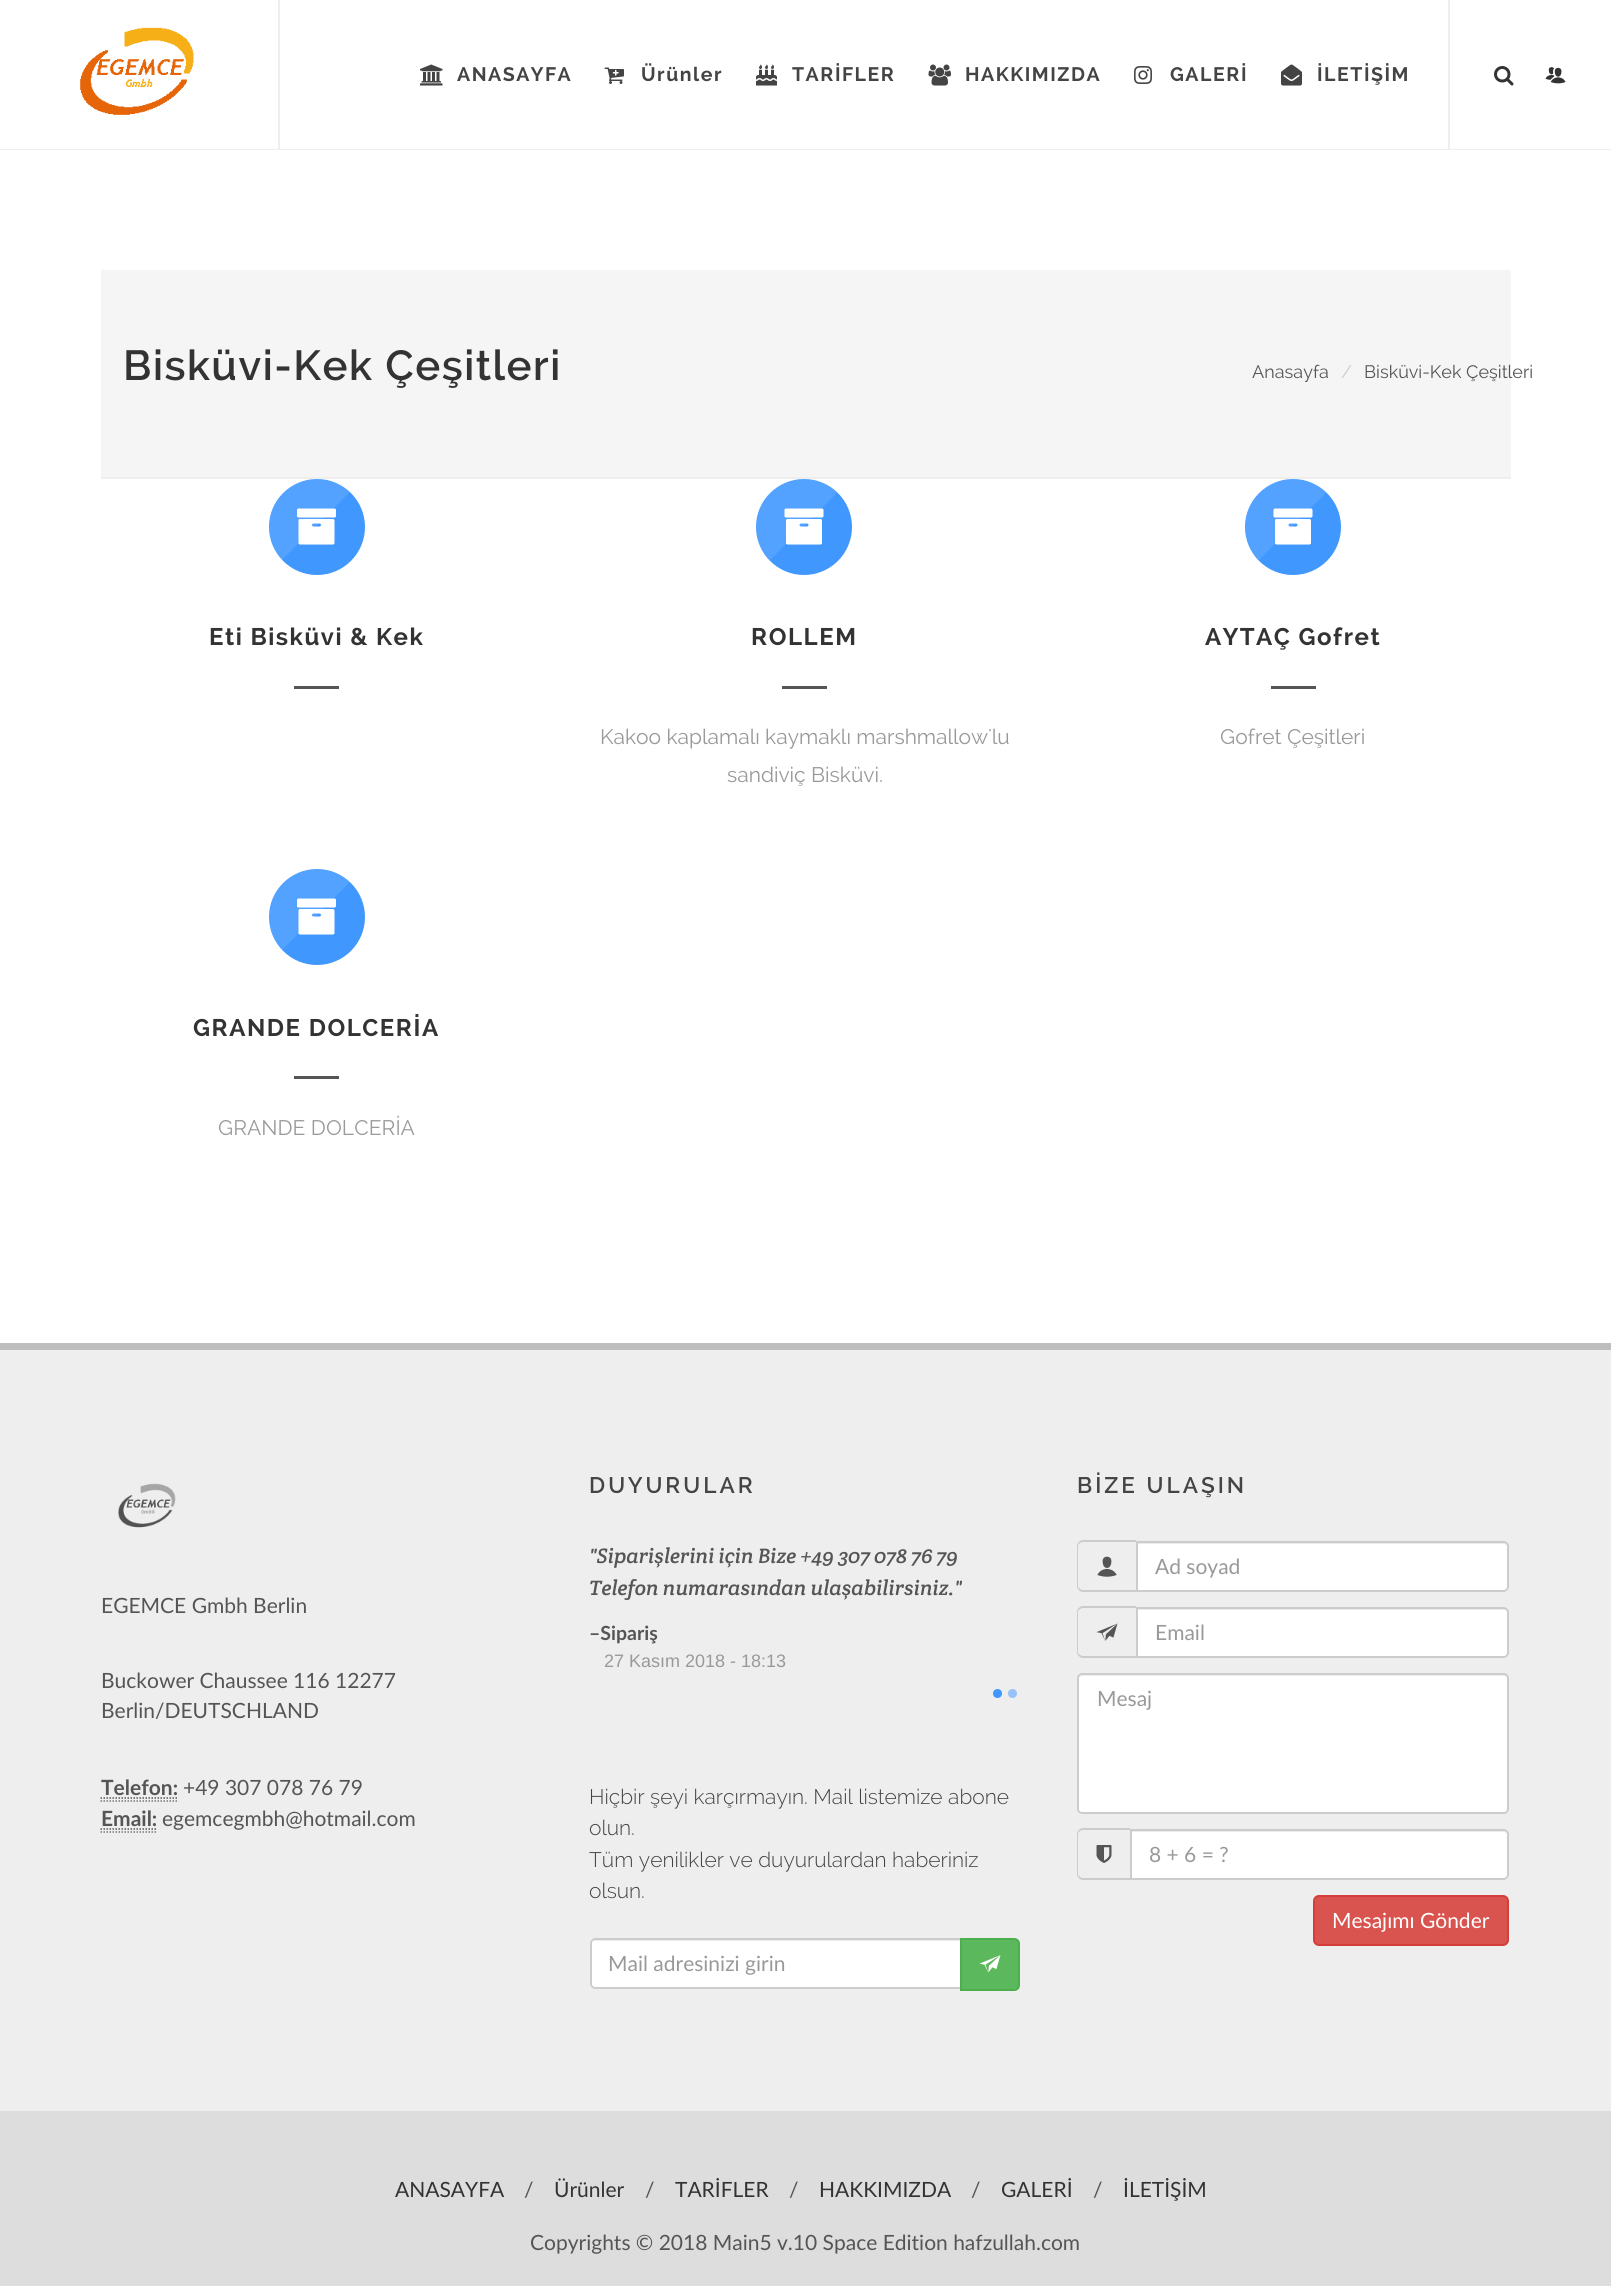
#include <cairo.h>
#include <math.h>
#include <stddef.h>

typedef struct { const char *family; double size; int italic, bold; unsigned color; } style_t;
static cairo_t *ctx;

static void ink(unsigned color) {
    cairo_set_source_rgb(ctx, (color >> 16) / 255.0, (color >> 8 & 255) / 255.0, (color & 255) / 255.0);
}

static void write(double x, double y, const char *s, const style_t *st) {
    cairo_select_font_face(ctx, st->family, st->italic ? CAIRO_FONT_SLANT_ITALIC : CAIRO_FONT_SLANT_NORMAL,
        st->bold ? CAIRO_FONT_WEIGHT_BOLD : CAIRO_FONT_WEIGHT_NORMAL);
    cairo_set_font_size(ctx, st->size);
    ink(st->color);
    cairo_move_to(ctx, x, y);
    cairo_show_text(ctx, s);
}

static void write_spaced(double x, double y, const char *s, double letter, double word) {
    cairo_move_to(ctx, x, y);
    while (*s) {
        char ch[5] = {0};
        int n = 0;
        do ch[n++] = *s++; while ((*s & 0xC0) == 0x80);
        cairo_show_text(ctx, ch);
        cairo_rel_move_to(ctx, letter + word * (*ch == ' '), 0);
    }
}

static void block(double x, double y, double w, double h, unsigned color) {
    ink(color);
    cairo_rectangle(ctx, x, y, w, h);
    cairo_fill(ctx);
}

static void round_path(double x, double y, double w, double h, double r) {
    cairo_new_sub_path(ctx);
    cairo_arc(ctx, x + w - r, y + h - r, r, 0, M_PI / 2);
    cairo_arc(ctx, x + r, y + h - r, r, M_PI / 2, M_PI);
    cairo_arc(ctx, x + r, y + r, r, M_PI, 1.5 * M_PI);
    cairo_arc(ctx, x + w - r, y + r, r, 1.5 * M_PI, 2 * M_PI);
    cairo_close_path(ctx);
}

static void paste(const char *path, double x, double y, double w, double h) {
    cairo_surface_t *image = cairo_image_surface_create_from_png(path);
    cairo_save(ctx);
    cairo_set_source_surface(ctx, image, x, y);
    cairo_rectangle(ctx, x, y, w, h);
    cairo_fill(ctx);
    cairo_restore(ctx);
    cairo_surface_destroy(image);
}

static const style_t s1 = {"Raleway", 18, 0, 0, 0x555555};
static const style_t s2 = {"Raleway", 18, 0, 0, 0xcccccc};
static const style_t s3 = {"Raleway", 21, 0, 0, 0x999999};
static const style_t s4 = {"Lato", 21, 0, 0, 0x555555};
static const style_t s5 = {"Lato", 21, 0, 1, 0x555555};
static const style_t s6 = {"Crete Round", 21, 1, 0, 0x555555};
static const style_t s7 = {"Lato", 19.5, 0, 1, 0x555555};
static const style_t s8 = {"Liberation Sans", 18, 0, 0, 0x999999};
static const style_t s9 = {"Raleway Light", 21, 0, 0, 0x444444};
static const style_t s10 = {"Lato", 21, 0, 0, 0x999999};
static const style_t s11 = {"Lato", 21, 0, 0, 0xffffff};
static const style_t s12 = {"Lato", 21, 0, 0, 0x333333};

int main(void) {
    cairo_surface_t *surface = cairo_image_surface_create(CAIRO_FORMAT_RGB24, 1611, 2286);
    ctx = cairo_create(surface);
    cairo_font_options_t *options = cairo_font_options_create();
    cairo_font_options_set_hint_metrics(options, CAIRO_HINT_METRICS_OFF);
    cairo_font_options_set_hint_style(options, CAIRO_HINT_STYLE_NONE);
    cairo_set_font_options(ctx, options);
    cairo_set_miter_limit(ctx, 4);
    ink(0xffffff);
    cairo_paint(ctx);
    block(0, 149, 1611, 1, 0xeeeeee);
    block(278, 0, 2, 150, 0xeeeeee);
    paste("pic1.png", 80, 27, 114, 88);
    block(1448, 0, 2, 150, 0xeeeeee);
    paste("pic2.png", 420, 64, 23, 22);
    cairo_select_font_face(ctx, "Raleway", CAIRO_FONT_SLANT_NORMAL, CAIRO_FONT_WEIGHT_BOLD);
    cairo_set_font_size(ctx, 19.5);
    ink(0x444444);
    write_spaced(457, 81, "ANASAYFA", 1.5, 0);
    paste("pic3.png", 604, 67, 20, 17);
    write_spaced(641, 81, "Ürünler", 1.5, 0);
    paste("pic4.png", 756, 64, 21, 22);
    write_spaced(792, 81, "TARİFLER", 1.5, 0);
    paste("pic5.png", 928, 64, 23, 22);
    write_spaced(965, 81, "HAKKIMIZDA", 1.5, 0);
    paste("pic6.png", 1134, 66, 18, 18);
    write_spaced(1170, 81, "GALERİ", 1.5, 0);
    paste("pic7.png", 1281, 64, 21, 22);
    write_spaced(1317, 81, "İLETİŞİM", 1.5, 0);
    paste("pic8.png", 1494, 66, 20, 20);
    paste("pic9.png", 1545, 67, 21, 17);
    block(101, 270, 1410, 207, 0xf5f5f5);
    block(101, 477, 1410, 2, 0xeeeeee);
    cairo_select_font_face(ctx, "Raleway SemiBold", CAIRO_FONT_SLANT_NORMAL, CAIRO_FONT_WEIGHT_NORMAL);
    cairo_set_font_size(ctx, 42);
    ink(0x333333);
    write_spaced(123, 380, "Bisküvi-Kek Çeşitleri", 1.5, 0);
    write(1252, 378, "Anasayfa", &s1);
    write(1341, 378, "/", &s2);
    write(1364, 378, "Bisküvi-Kek Çeşitleri", &s1);
    ink(0x4098ff);
    cairo_new_path(ctx);
    cairo_arc(ctx, 317, 527, 48, 0, 2 * M_PI);
    cairo_fill(ctx);
    cairo_set_source_rgba(ctx, 1, 1, 1, 0.1);
    cairo_new_path(ctx);
    cairo_move_to(ctx, 317, 479);
    cairo_curve_to(ctx, 330, 479, 341, 484, 350, 492);
    cairo_line_to(ctx, 282, 560);
    cairo_curve_to(ctx, 254, 530, 275, 479, 317, 479);
    cairo_close_path(ctx);
    cairo_fill(ctx);
    paste("pic10.png", 297, 508, 39, 37);
    cairo_select_font_face(ctx, "Raleway", CAIRO_FONT_SLANT_NORMAL, CAIRO_FONT_WEIGHT_BOLD);
    cairo_set_font_size(ctx, 24);
    ink(0x333333);
    write_spaced(209, 645, "Eti Bisküvi & Kek", 1.5, 0);
    block(294, 686, 45, 3, 0x555555);
    ink(0x4098ff);
    cairo_new_path(ctx);
    cairo_arc(ctx, 804, 527, 48, 0, 2 * M_PI);
    cairo_fill(ctx);
    cairo_set_source_rgba(ctx, 1, 1, 1, 0.1);
    cairo_new_path(ctx);
    cairo_move_to(ctx, 804, 479);
    cairo_curve_to(ctx, 817, 479, 829, 484, 837, 493);
    cairo_line_to(ctx, 770, 560);
    cairo_curve_to(ctx, 741, 531, 761, 479, 804, 479);
    cairo_close_path(ctx);
    cairo_fill(ctx);
    paste("pic11.png", 784, 508, 40, 37);
    ink(0x333333);
    write_spaced(751, 645, "ROLLEM", 1.5, 0);
    block(782, 686, 45, 3, 0x555555);
    write(600, 744, "Kakoo kaplamalı kaymaklı marshmallow'lu", &s3);
    write(727, 782, "sandiviç Bisküvi.", &s3);
    ink(0x4098ff);
    cairo_new_path(ctx);
    cairo_arc(ctx, 1293, 527, 48, 0, 2 * M_PI);
    cairo_fill(ctx);
    cairo_set_source_rgba(ctx, 1, 1, 1, 0.1);
    cairo_new_path(ctx);
    cairo_move_to(ctx, 1293, 479);
    cairo_curve_to(ctx, 1306, 479, 1318, 484, 1326, 493);
    cairo_line_to(ctx, 1259, 560);
    cairo_curve_to(ctx, 1230, 531, 1250, 479, 1293, 479);
    cairo_close_path(ctx);
    cairo_fill(ctx);
    paste("pic11.png", 1273, 508, 40, 37);
    cairo_select_font_face(ctx, "Raleway", CAIRO_FONT_SLANT_NORMAL, CAIRO_FONT_WEIGHT_BOLD);
    cairo_set_font_size(ctx, 24);
    ink(0x333333);
    write_spaced(1205, 645, "AYTAÇ Gofret", 1.5, 0);
    block(1271, 686, 45, 3, 0x555555);
    write(1220, 744, "Gofret Çeşitleri", &s3);
    ink(0x4098ff);
    cairo_new_path(ctx);
    cairo_arc(ctx, 317, 917, 48, 0, 2 * M_PI);
    cairo_fill(ctx);
    cairo_set_source_rgba(ctx, 1, 1, 1, 0.1);
    cairo_new_path(ctx);
    cairo_move_to(ctx, 317, 869);
    cairo_curve_to(ctx, 330, 869, 341, 874, 350, 882);
    cairo_line_to(ctx, 282, 950);
    cairo_curve_to(ctx, 254, 920, 275, 869, 317, 869);
    cairo_close_path(ctx);
    cairo_fill(ctx);
    paste("pic10.png", 297, 898, 39, 37);
    cairo_select_font_face(ctx, "Raleway", CAIRO_FONT_SLANT_NORMAL, CAIRO_FONT_WEIGHT_BOLD);
    cairo_set_font_size(ctx, 24);
    ink(0x333333);
    write_spaced(193, 1036, "GRANDE DOLCERİA", 1.5, 0);
    block(294, 1076, 45, 3, 0x555555);
    write(218, 1135, "GRANDE DOLCERİA", &s3);
    block(0, 1350, 1611, 761, 0xeeeeee);
    block(0, 1343, 1611, 7, 0xbebebe);
    paste("pic12.png", 118, 1483, 58, 45);
    write(101, 1613, "EGEMCE Gmbh Berlin", &s4);
    write(101, 1688, "Buckower Chaussee 116 12277", &s4);
    write(101, 1718, "Berlin/DEUTSCHLAND", &s4);
    write(101, 1795, "Telefon:", &s5);
    cairo_new_path(ctx);
    cairo_move_to(ctx, 100.5, 1801);
    cairo_line_to(ctx, 177, 1801);
    ink(0x777777);
    cairo_set_line_width(ctx, 1.5);
    cairo_set_dash(ctx, (double[]){1.5, 1.5}, 2, 0);
    cairo_stroke(ctx);
    cairo_new_path(ctx);
    cairo_move_to(ctx, 100.5, 1798);
    cairo_line_to(ctx, 177.5, 1798);
    ink(0x555555);
    cairo_stroke(ctx);
    write(183, 1795, "+49 307 078 76 79", &s4);
    write(101, 1826, "Email:", &s5);
    cairo_new_path(ctx);
    cairo_move_to(ctx, 100.5, 1832);
    cairo_line_to(ctx, 157.5, 1832);
    ink(0x777777);
    cairo_stroke(ctx);
    cairo_new_path(ctx);
    cairo_move_to(ctx, 100.5, 1829);
    cairo_line_to(ctx, 157, 1829);
    ink(0x555555);
    cairo_stroke(ctx);
    write(162, 1826, "egemcegmbh@hotmail.com", &s4);
    cairo_select_font_face(ctx, "Raleway SemiBold", CAIRO_FONT_SLANT_NORMAL, CAIRO_FONT_WEIGHT_NORMAL);
    cairo_set_font_size(ctx, 22.5);
    ink(0x444444);
    write_spaced(589, 1493, "DUYURULAR", 3, 0);
    write(589, 1563, "\"Siparişlerini için Bize +49 307 078 76 79", &s6);
    write(589, 1595, "Telefon numarasından ulaşabilirsiniz.\"", &s6);
    write(589, 1640, "–Sipariş", &s7);
    write(604, 1667, "27 Kasım 2018 - 18:13", &s8);
    ink(0x4098ff);
    cairo_new_path(ctx);
    cairo_arc(ctx, 997.5, 1693.5, 4.5, 0, 2 * M_PI);
    cairo_fill(ctx);
    ink(0x97c3f7);
    cairo_arc(ctx, 1012.5, 1693.5, 4.5, 0, 2 * M_PI);
    cairo_fill(ctx);
    write(589, 1804, "Hiçbir şeyi karçırmayın. Mail listemize abone", &s9);
    write(589, 1835, "olun.", &s9);
    write(589, 1867, "Tüm yenilikler ve duyurulardan haberiniz", &s9);
    write(589, 1898, "olsun.", &s9);
    ink(0xffffff);
    cairo_new_path(ctx);
    cairo_move_to(ctx, 595, 1938);
    cairo_line_to(ctx, 962, 1938);
    cairo_line_to(ctx, 962, 1989);
    cairo_line_to(ctx, 595, 1989);
    cairo_curve_to(ctx, 592, 1989, 590, 1987, 590, 1984);
    cairo_line_to(ctx, 590, 1943);
    cairo_curve_to(ctx, 590, 1940, 592, 1938, 595, 1938);
    cairo_close_path(ctx);
    cairo_fill(ctx);
    ink(0xececec);
    cairo_new_path(ctx);
    cairo_move_to(ctx, 594, 1941);
    cairo_line_to(ctx, 960, 1941);
    cairo_line_to(ctx, 960, 1940);
    cairo_line_to(ctx, 594, 1940);
    cairo_curve_to(ctx, 592, 1940, 591, 1941, 591, 1943);
    cairo_line_to(ctx, 591, 1944);
    cairo_curve_to(ctx, 591, 1942, 592, 1941, 594, 1941);
    cairo_close_path(ctx);
    cairo_fill(ctx);
    cairo_new_path(ctx);
    cairo_move_to(ctx, 595, 1939);
    cairo_line_to(ctx, 961, 1939);
    cairo_line_to(ctx, 961, 1988);
    cairo_line_to(ctx, 595, 1988);
    cairo_curve_to(ctx, 593, 1988, 591, 1986, 591, 1984);
    cairo_line_to(ctx, 591, 1943);
    cairo_curve_to(ctx, 591, 1941, 593, 1939, 595, 1939);
    cairo_close_path(ctx);
    ink(0xcccccc);
    cairo_set_line_width(ctx, 2);
    cairo_set_dash(ctx, NULL, 0, 0);
    cairo_stroke(ctx);
    write(608, 1971, "Mail adresinizi girin", &s10);
    ink(0x5cb85c);
    cairo_new_path(ctx);
    cairo_move_to(ctx, 961, 1939);
    cairo_line_to(ctx, 1014, 1939);
    cairo_curve_to(ctx, 1017, 1939, 1019, 1941, 1019, 1944);
    cairo_line_to(ctx, 1019, 1985);
    cairo_curve_to(ctx, 1019, 1988, 1017, 1990, 1014, 1990);
    cairo_line_to(ctx, 961, 1990);
    cairo_close_path(ctx);
    cairo_fill_preserve(ctx);
    ink(0x4cae4c);
    cairo_stroke(ctx);
    paste("pic13.png", 979, 1955, 22, 18);
    cairo_select_font_face(ctx, "Raleway SemiBold", CAIRO_FONT_SLANT_NORMAL, CAIRO_FONT_WEIGHT_NORMAL);
    cairo_set_font_size(ctx, 22.5);
    ink(0x444444);
    write_spaced(1077, 1493, "BİZE ULAŞIN", 3, 0);
    ink(0xcccccc);
    cairo_set_fill_rule(ctx, CAIRO_FILL_RULE_EVEN_ODD);
    cairo_new_path(ctx);
    cairo_move_to(ctx, 1083, 1540);
    cairo_line_to(ctx, 1136, 1540);
    cairo_line_to(ctx, 1136, 1592);
    cairo_line_to(ctx, 1083, 1592);
    cairo_curve_to(ctx, 1080, 1592, 1077, 1589, 1077, 1586);
    cairo_line_to(ctx, 1077, 1546);
    cairo_curve_to(ctx, 1077, 1543, 1080, 1540, 1083, 1540);
    cairo_close_path(ctx);
    cairo_move_to(ctx, 1083, 1542);
    cairo_line_to(ctx, 1136, 1542);
    cairo_line_to(ctx, 1136, 1590);
    cairo_line_to(ctx, 1083, 1590);
    cairo_curve_to(ctx, 1081, 1590, 1078, 1588, 1078, 1586);
    cairo_line_to(ctx, 1078, 1546);
    cairo_curve_to(ctx, 1078, 1544, 1081, 1542, 1083, 1542);
    cairo_close_path(ctx);
    cairo_fill(ctx);
    paste("pic14.png", 1097, 1556, 20, 21);
    ink(0xffffff);
    cairo_new_path(ctx);
    cairo_move_to(ctx, 1136, 1541);
    cairo_line_to(ctx, 1504, 1541);
    cairo_curve_to(ctx, 1507, 1541, 1509, 1543, 1509, 1546);
    cairo_line_to(ctx, 1509, 1587);
    cairo_curve_to(ctx, 1509, 1590, 1507, 1592, 1504, 1592);
    cairo_line_to(ctx, 1136, 1592);
    cairo_close_path(ctx);
    cairo_fill(ctx);
    ink(0xececec);
    cairo_set_fill_rule(ctx, CAIRO_FILL_RULE_WINDING);
    cairo_new_path(ctx);
    cairo_move_to(ctx, 1137, 1544);
    cairo_line_to(ctx, 1504, 1544);
    cairo_curve_to(ctx, 1506, 1544, 1508, 1545, 1508, 1546);
    cairo_line_to(ctx, 1508, 1545);
    cairo_curve_to(ctx, 1508, 1543, 1507, 1542, 1505, 1542);
    cairo_line_to(ctx, 1137, 1542);
    cairo_close_path(ctx);
    cairo_fill(ctx);
    cairo_new_path(ctx);
    cairo_move_to(ctx, 1137, 1542);
    cairo_line_to(ctx, 1504, 1542);
    cairo_curve_to(ctx, 1506, 1542, 1508, 1544, 1508, 1546);
    cairo_line_to(ctx, 1508, 1587);
    cairo_curve_to(ctx, 1508, 1589, 1506, 1591, 1504, 1591);
    cairo_line_to(ctx, 1137, 1591);
    cairo_close_path(ctx);
    ink(0xcccccc);
    cairo_stroke(ctx);
    write(1155, 1574, "Ad soyad", &s10);
    ink(0xcccccc);
    cairo_set_fill_rule(ctx, CAIRO_FILL_RULE_EVEN_ODD);
    cairo_new_path(ctx);
    cairo_move_to(ctx, 1083, 1606);
    cairo_line_to(ctx, 1136, 1606);
    cairo_line_to(ctx, 1136, 1658);
    cairo_line_to(ctx, 1083, 1658);
    cairo_curve_to(ctx, 1080, 1658, 1077, 1655, 1077, 1652);
    cairo_line_to(ctx, 1077, 1612);
    cairo_curve_to(ctx, 1077, 1609, 1080, 1606, 1083, 1606);
    cairo_close_path(ctx);
    cairo_move_to(ctx, 1083, 1608);
    cairo_line_to(ctx, 1136, 1608);
    cairo_line_to(ctx, 1136, 1656);
    cairo_line_to(ctx, 1083, 1656);
    cairo_curve_to(ctx, 1081, 1656, 1078, 1654, 1078, 1652);
    cairo_line_to(ctx, 1078, 1612);
    cairo_curve_to(ctx, 1078, 1610, 1081, 1608, 1083, 1608);
    cairo_close_path(ctx);
    cairo_fill(ctx);
    paste("pic15.png", 1096, 1623, 22, 18);
    ink(0xffffff);
    cairo_new_path(ctx);
    cairo_move_to(ctx, 1136, 1607);
    cairo_line_to(ctx, 1504, 1607);
    cairo_curve_to(ctx, 1507, 1607, 1509, 1609, 1509, 1612);
    cairo_line_to(ctx, 1509, 1653);
    cairo_curve_to(ctx, 1509, 1656, 1507, 1658, 1504, 1658);
    cairo_line_to(ctx, 1136, 1658);
    cairo_close_path(ctx);
    cairo_fill(ctx);
    ink(0xececec);
    cairo_set_fill_rule(ctx, CAIRO_FILL_RULE_WINDING);
    cairo_new_path(ctx);
    cairo_move_to(ctx, 1137, 1610);
    cairo_line_to(ctx, 1504, 1610);
    cairo_curve_to(ctx, 1506, 1610, 1508, 1611, 1508, 1612);
    cairo_line_to(ctx, 1508, 1611);
    cairo_curve_to(ctx, 1508, 1609, 1507, 1608, 1505, 1608);
    cairo_line_to(ctx, 1137, 1608);
    cairo_close_path(ctx);
    cairo_fill(ctx);
    cairo_new_path(ctx);
    cairo_move_to(ctx, 1137, 1608);
    cairo_line_to(ctx, 1504, 1608);
    cairo_curve_to(ctx, 1506, 1608, 1508, 1610, 1508, 1612);
    cairo_line_to(ctx, 1508, 1653);
    cairo_curve_to(ctx, 1508, 1655, 1506, 1657, 1504, 1657);
    cairo_line_to(ctx, 1137, 1657);
    cairo_close_path(ctx);
    ink(0xcccccc);
    cairo_stroke(ctx);
    write(1155, 1640, "Email", &s10);
    ink(0xffffff);
    round_path(1077, 1673, 432, 141, 5);
    cairo_fill(ctx);
    ink(0xececec);
    cairo_new_path(ctx);
    cairo_move_to(ctx, 1082, 1676);
    cairo_line_to(ctx, 1504, 1676);
    cairo_curve_to(ctx, 1506, 1676, 1508, 1677, 1508, 1678);
    cairo_curve_to(ctx, 1508, 1676, 1507, 1674, 1505, 1674);
    cairo_line_to(ctx, 1082, 1674);
    cairo_curve_to(ctx, 1080, 1674, 1079, 1675, 1079, 1677);
    cairo_close_path(ctx);
    cairo_fill(ctx);
    round_path(1078, 1674, 430, 139, 4);
    ink(0xcccccc);
    cairo_stroke(ctx);
    write(1097, 1706, "Mesaj", &s10);
    ink(0xcccccc);
    cairo_set_fill_rule(ctx, CAIRO_FILL_RULE_EVEN_ODD);
    cairo_new_path(ctx);
    cairo_move_to(ctx, 1083, 1828);
    cairo_line_to(ctx, 1130, 1828);
    cairo_line_to(ctx, 1130, 1880);
    cairo_line_to(ctx, 1083, 1880);
    cairo_curve_to(ctx, 1080, 1880, 1077, 1877, 1077, 1874);
    cairo_line_to(ctx, 1077, 1834);
    cairo_curve_to(ctx, 1077, 1831, 1080, 1828, 1083, 1828);
    cairo_close_path(ctx);
    cairo_move_to(ctx, 1083, 1830);
    cairo_line_to(ctx, 1130, 1830);
    cairo_line_to(ctx, 1130, 1878);
    cairo_line_to(ctx, 1083, 1878);
    cairo_curve_to(ctx, 1081, 1878, 1078, 1876, 1078, 1874);
    cairo_line_to(ctx, 1078, 1834);
    cairo_curve_to(ctx, 1078, 1832, 1081, 1830, 1083, 1830);
    cairo_close_path(ctx);
    cairo_fill(ctx);
    paste("pic16.png", 1096, 1845, 16, 18);
    ink(0xffffff);
    cairo_new_path(ctx);
    cairo_move_to(ctx, 1130, 1829);
    cairo_line_to(ctx, 1504, 1829);
    cairo_curve_to(ctx, 1507, 1829, 1509, 1831, 1509, 1834);
    cairo_line_to(ctx, 1509, 1875);
    cairo_curve_to(ctx, 1509, 1878, 1507, 1880, 1504, 1880);
    cairo_line_to(ctx, 1130, 1880);
    cairo_close_path(ctx);
    cairo_fill(ctx);
    ink(0xececec);
    cairo_set_fill_rule(ctx, CAIRO_FILL_RULE_WINDING);
    cairo_new_path(ctx);
    cairo_move_to(ctx, 1131, 1832);
    cairo_line_to(ctx, 1504, 1832);
    cairo_curve_to(ctx, 1506, 1832, 1508, 1833, 1508, 1834);
    cairo_curve_to(ctx, 1508, 1832, 1507, 1830, 1505, 1830);
    cairo_line_to(ctx, 1131, 1830);
    cairo_close_path(ctx);
    cairo_fill(ctx);
    cairo_new_path(ctx);
    cairo_move_to(ctx, 1131, 1830);
    cairo_line_to(ctx, 1504, 1830);
    cairo_curve_to(ctx, 1506, 1830, 1508, 1832, 1508, 1834);
    cairo_line_to(ctx, 1508, 1875);
    cairo_curve_to(ctx, 1508, 1877, 1506, 1879, 1504, 1879);
    cairo_line_to(ctx, 1131, 1879);
    cairo_close_path(ctx);
    ink(0xcccccc);
    cairo_stroke(ctx);
    write(1149, 1862, "8 + 6 = ?", &s10);
    ink(0xd9534f);
    round_path(1314, 1896, 194, 49, 5);
    cairo_fill_preserve(ctx);
    ink(0xd43f3a);
    cairo_stroke(ctx);
    write(1332, 1928, "Mesajımı Gönder", &s11);
    block(0, 2111, 1611, 175, 0xdddddd);
    write(395, 2197, "ANASAYFA", &s12);
    write(524, 2197, "/", &s4);
    write(554, 2197, "Ürünler", &s12);
    write(645, 2197, "/", &s4);
    write(675, 2197, "TARİFLER", &s12);
    write(789, 2197, "/", &s4);
    write(819, 2197, "HAKKIMIZDA", &s12);
    write(971, 2197, "/", &s4);
    write(1001, 2197, "GALERİ", &s12);
    write(1093, 2197, "/", &s4);
    write(1123, 2197, "İLETİŞİM", &s12);
    write(530, 2250, "Copyrights © 2018 Main5 v.10 Space Edition hafzullah.com", &s4);
    cairo_surface_write_to_png(surface, "screenshot.png");
    cairo_font_options_destroy(options);
    cairo_destroy(ctx);
    cairo_surface_destroy(surface);
    return 0;
}
